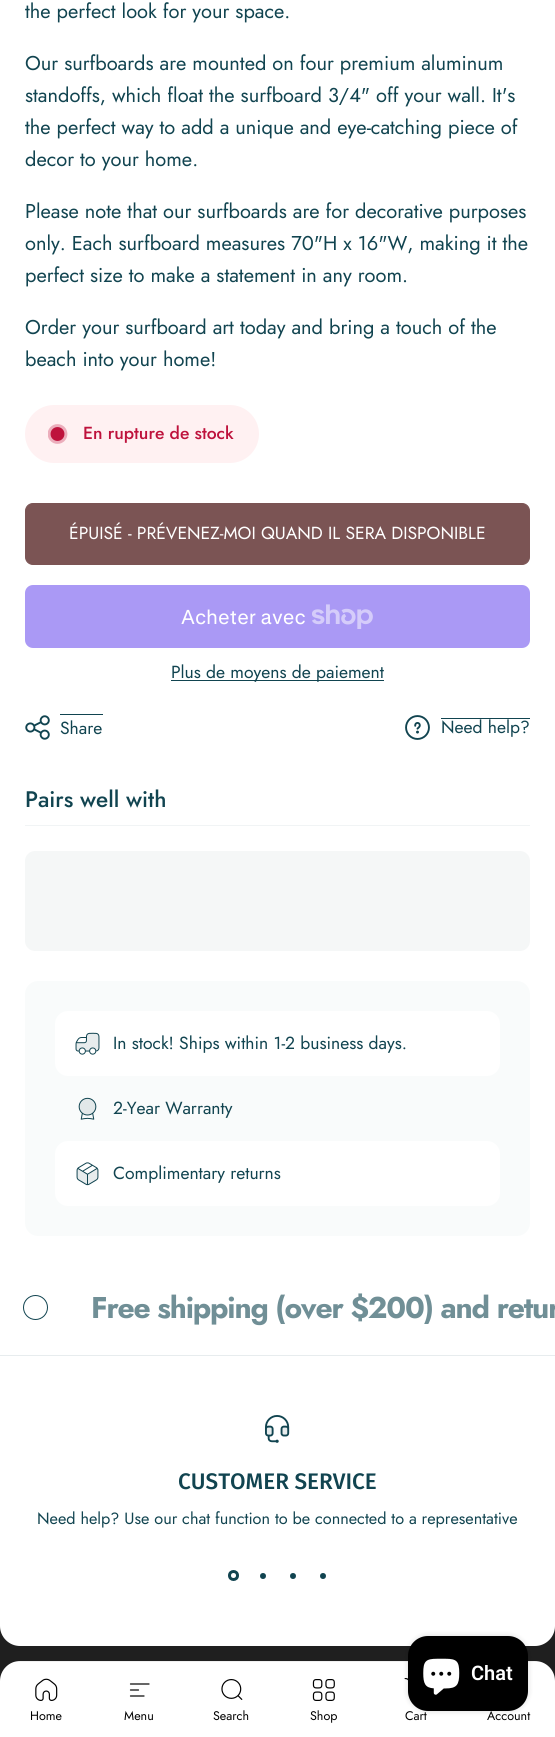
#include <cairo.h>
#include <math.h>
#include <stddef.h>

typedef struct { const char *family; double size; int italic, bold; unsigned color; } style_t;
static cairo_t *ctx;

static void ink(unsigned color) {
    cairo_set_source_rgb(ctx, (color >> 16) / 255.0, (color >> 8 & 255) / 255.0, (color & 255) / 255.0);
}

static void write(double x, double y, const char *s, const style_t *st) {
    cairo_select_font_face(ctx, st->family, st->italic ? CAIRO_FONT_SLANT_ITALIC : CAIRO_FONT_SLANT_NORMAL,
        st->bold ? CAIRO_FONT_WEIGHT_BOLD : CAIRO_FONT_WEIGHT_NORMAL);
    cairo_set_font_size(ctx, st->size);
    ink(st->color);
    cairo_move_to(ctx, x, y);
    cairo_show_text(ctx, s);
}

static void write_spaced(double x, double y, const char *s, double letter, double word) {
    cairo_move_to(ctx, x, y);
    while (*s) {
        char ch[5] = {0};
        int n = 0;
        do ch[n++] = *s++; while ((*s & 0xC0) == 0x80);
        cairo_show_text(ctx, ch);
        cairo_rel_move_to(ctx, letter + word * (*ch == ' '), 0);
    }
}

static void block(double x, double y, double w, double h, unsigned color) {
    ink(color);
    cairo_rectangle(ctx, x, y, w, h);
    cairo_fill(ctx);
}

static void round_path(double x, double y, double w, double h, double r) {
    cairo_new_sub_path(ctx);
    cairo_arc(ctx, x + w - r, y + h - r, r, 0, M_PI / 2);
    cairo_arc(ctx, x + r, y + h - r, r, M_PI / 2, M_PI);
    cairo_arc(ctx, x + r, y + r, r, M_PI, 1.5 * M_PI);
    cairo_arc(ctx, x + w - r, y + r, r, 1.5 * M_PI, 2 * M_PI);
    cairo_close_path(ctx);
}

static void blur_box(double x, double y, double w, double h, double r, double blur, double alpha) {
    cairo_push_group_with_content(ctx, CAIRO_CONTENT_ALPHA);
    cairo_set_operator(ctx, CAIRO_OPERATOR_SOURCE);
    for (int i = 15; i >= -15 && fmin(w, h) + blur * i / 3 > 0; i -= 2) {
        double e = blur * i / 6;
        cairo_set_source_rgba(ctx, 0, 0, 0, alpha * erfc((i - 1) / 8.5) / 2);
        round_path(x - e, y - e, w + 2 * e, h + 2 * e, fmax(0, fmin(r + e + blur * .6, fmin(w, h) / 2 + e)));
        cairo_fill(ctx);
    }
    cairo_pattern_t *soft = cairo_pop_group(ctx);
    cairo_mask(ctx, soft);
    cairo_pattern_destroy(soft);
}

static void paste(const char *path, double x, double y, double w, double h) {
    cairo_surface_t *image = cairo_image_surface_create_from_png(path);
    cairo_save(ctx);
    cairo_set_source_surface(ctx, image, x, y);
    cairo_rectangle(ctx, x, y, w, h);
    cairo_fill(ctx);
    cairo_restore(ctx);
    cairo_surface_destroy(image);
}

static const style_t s1 = {"Jost", 20, 0, 0, 0x114450};
static const style_t s2 = {"Jost Medium", 17.5, 0, 0, 0xbe123c};
static const style_t s3 = {"Jost", 17.5, 0, 0, 0xffffff};
static const style_t s4 = {"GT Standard", 20, 0, 0, 0xffffff};
static const style_t s5 = {"Jost", 17.5, 0, 0, 0x114450};
static const style_t s6 = {"Jost Medium", 22.5, 0, 0, 0x114450};
static const style_t s7 = {"Fira Sans Medium", 22.5, 0, 0, 0x114450};
static const style_t s8 = {"Jost", 16.25, 0, 0, 0x114450};
static const style_t s9 = {"Roboto SemiBold", 20, 0, 0, 0xffffff};
static const style_t s10 = {"Jost", 12.5, 0, 0, 0x000000};

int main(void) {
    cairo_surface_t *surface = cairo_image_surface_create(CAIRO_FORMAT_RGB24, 555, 1737);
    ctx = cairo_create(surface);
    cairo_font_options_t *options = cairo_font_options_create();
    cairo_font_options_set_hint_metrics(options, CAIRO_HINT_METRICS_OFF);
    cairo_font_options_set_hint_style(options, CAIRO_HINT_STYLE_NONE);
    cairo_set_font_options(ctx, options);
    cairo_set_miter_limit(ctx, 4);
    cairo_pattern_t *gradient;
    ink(0xffffff);
    cairo_paint(ctx);
    write(25, 18, "the perfect look for your space.", &s1);
    write(25, 70, "Our surfboards are mounted on four premium aluminum", &s1);
    write(25, 102, "standoffs, which float the surfboard 3/4\" off your wall. It's", &s1);
    write(25, 134, "the perfect way to add a unique and eye-catching piece of", &s1);
    write(25, 166, "decor to your home.", &s1);
    write(25, 218, "Please note that our surfboards are for decorative purposes", &s1);
    write(25, 250, "only. Each surfboard measures 70\"H x 16\"W, making it the", &s1);
    write(25, 282, "perfect size to make a statement in any room.", &s1);
    write(25, 334, "Order your surfboard art today and bring a touch of the", &s1);
    write(25, 366, "beach into your home!", &s1);
    ink(0xfff1f2);
    round_path(25, 405, 234, 58, 29);
    cairo_fill(ctx);
    ink(0xbe123c);
    cairo_arc(ctx, 57.5, 434, 6, 0, 2 * M_PI);
    cairo_fill_preserve(ctx);
    cairo_set_line_width(ctx, 1.9);
    cairo_stroke(ctx);
    cairo_save(ctx);
    cairo_rectangle(ctx, 48, 424, 20, 20);
    cairo_clip(ctx);
    cairo_arc(ctx, 57.5, 434, 8, 0, 2 * M_PI);
    cairo_set_source_rgba(ctx, 0.745, 0.071, 0.235, 0.3);
    cairo_set_line_width(ctx, 3.8);
    cairo_stroke(ctx);
    cairo_restore(ctx);
    write(83, 439, "En rupture de stock", &s2);
    ink(0x7b5454);
    round_path(25.5, 503.5, 504, 61, 7.5);
    cairo_fill_preserve(ctx);
    cairo_set_line_width(ctx, 1);
    cairo_stroke(ctx);
    write(69, 539, "ÉPUISÉ - PRÉVENEZ-MOI QUAND IL SERA DISPONIBLE", &s3);
    ink(0xaa99f5);
    round_path(25, 585, 505, 63, 8);
    cairo_fill(ctx);
    write(181, 624, "Acheter avec", &s4);
    paste("pic1.png", 312, 604, 61, 25);
    block(171, 680, 213, 1, 0x114450);
    write(171, 678, "Plus de moyens de paiement", &s5);
    paste("pic2.png", 25, 715, 25, 25);
    block(60, 714, 43, 1, 0x114450);
    write(60, 734, "Share", &s5);
    paste("pic3.png", 405, 715, 25, 25);
    block(441, 718, 89, 1, 0x114450);
    write(441, 733, "Need help?", &s5);
    block(25, 825, 505, 1, 0xf1f4f5);
    write(25, 807, "Pairs well with", &s6);
    gradient = cairo_pattern_create_linear(47, 727, 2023, 1075);
    cairo_pattern_add_color_stop_rgba(gradient, 0.4, 0.961, 0.969, 0.969, 1);
    cairo_pattern_add_color_stop_rgba(gradient, 0.63, 0.894, 0.918, 0.922, 1);
    cairo_pattern_add_color_stop_rgba(gradient, 0.79, 0.961, 0.969, 0.969, 1);
    cairo_set_source(ctx, gradient);
    cairo_pattern_destroy(gradient);
    round_path(25, 851, 505, 100, 10);
    cairo_fill(ctx);
    ink(0xf9fbfb);
    cairo_new_path(ctx);
    cairo_move_to(ctx, 38, 981);
    cairo_line_to(ctx, 517, 981);
    cairo_curve_to(ctx, 524, 981, 530, 987, 530, 994);
    cairo_line_to(ctx, 530, 1076);
    cairo_line_to(ctx, 25, 1076);
    cairo_line_to(ctx, 25, 994);
    cairo_curve_to(ctx, 25, 987, 31, 981, 38, 981);
    cairo_close_path(ctx);
    cairo_fill(ctx);
    ink(0xffffff);
    round_path(55, 1011, 445, 65, 13);
    cairo_fill(ctx);
    paste("pic4.png", 75, 1032, 25, 23);
    write(113, 1049, "In stock! Ships within 1-2 business days.", &s5);
    block(25, 1076, 505, 65, 0xf9fbfb);
    paste("pic5.png", 78, 1097, 19, 23);
    write(113, 1114, "2-Year Warranty", &s5);
    ink(0xf9fbfb);
    cairo_new_path(ctx);
    cairo_move_to(ctx, 25, 1141);
    cairo_line_to(ctx, 530, 1141);
    cairo_line_to(ctx, 530, 1223);
    cairo_curve_to(ctx, 530, 1230, 524, 1236, 517, 1236);
    cairo_line_to(ctx, 38, 1236);
    cairo_curve_to(ctx, 31, 1236, 25, 1230, 25, 1223);
    cairo_close_path(ctx);
    cairo_fill(ctx);
    ink(0xffffff);
    round_path(55, 1141, 445, 65, 13);
    cairo_fill(ctx);
    paste("pic6.png", 76, 1162, 23, 24);
    write(113, 1179, "Complimentary returns", &s5);
    cairo_new_path(ctx);
    cairo_arc(ctx, 35.5, 1307.5, 12, 0, 2 * M_PI);
    cairo_stroke(ctx);
    cairo_select_font_face(ctx, "Jost", CAIRO_FONT_SLANT_NORMAL, CAIRO_FONT_WEIGHT_BOLD);
    cairo_set_font_size(ctx, 30);
    ink(0x708f96);
    write_spaced(91, 1318, "Free shipping (over $200) and retur", -1.2, 0);
    block(0, 1626, 555, 55, 0x1f1f1f);
    ink(0xffffff);
    cairo_new_path(ctx);
    cairo_move_to(ctx, 0, 1355);
    cairo_line_to(ctx, 555, 1355);
    cairo_line_to(ctx, 555, 1626);
    cairo_curve_to(ctx, 555, 1637, 546, 1646, 535, 1646);
    cairo_line_to(ctx, 20, 1646);
    cairo_curve_to(ctx, 9, 1646, 0, 1637, 0, 1626);
    cairo_close_path(ctx);
    cairo_fill(ctx);
    block(0, 1355, 555, 1, 0xe7ecee);
    paste("pic7.png", 265, 1415, 25, 28);
    write(178, 1489, "CUSTOMER SERVICE", &s7);
    write(37, 1524, "Need help? Use our chat function to be connected to a representative", &s8);
    cairo_new_path(ctx);
    cairo_arc(ctx, 233.5, 1575.5, 4, 0, 2 * M_PI);
    cairo_set_line_width(ctx, 3);
    cairo_stroke(ctx);
    cairo_arc(ctx, 263, 1576, 3, 0, 2 * M_PI);
    cairo_fill(ctx);
    cairo_arc(ctx, 293, 1576, 3, 0, 2 * M_PI);
    cairo_fill(ctx);
    cairo_arc(ctx, 323, 1576, 3, 0, 2 * M_PI);
    cairo_fill(ctx);
    ink(0xffffff);
    cairo_new_path(ctx);
    cairo_move_to(ctx, 20, 1661);
    cairo_line_to(ctx, 535, 1661);
    cairo_curve_to(ctx, 546, 1661, 555, 1670, 555, 1681);
    cairo_line_to(ctx, 555, 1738);
    cairo_line_to(ctx, 0, 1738);
    cairo_line_to(ctx, 0, 1681);
    cairo_curve_to(ctx, 0, 1670, 9, 1661, 20, 1661);
    cairo_close_path(ctx);
    cairo_fill(ctx);
    cairo_set_source_rgba(ctx, 0, 0, 0, 0.06);
    cairo_rectangle(ctx, 10, 1661, 535, 1);
    cairo_fill(ctx);
    paste("pic12.png", 404, 1678, 4, 3);
    ink(0x000000);
    blur_box(408, 1636, 120, 75, 20, 3, 0.15);
    ink(0x000000);
    round_path(408, 1636, 120, 75, 20);
    cairo_fill(ctx);
    paste("pic8.png", 423, 1658, 37, 37);
    write(471, 1680, "Chat", &s9);
    paste("pic9.png", 35, 1678, 23, 23);
    write(30, 1720, "Home", &s10);
    cairo_new_path(ctx);
    cairo_move_to(ctx, 130.5, 1684);
    cairo_line_to(ctx, 149, 1684);
    cairo_move_to(ctx, 130.5, 1690);
    cairo_line_to(ctx, 138.5, 1690);
    cairo_move_to(ctx, 130.5, 1696);
    cairo_line_to(ctx, 144, 1696);
    cairo_set_line_width(ctx, 1.2);
    cairo_set_line_cap(ctx, CAIRO_LINE_CAP_ROUND);
    cairo_set_line_join(ctx, CAIRO_LINE_JOIN_ROUND);
    cairo_stroke(ctx);
    write(124, 1720, "Menu", &s10);
    paste("pic10.png", 221, 1679, 22, 21);
    write(213, 1720, "Search", &s10);
    paste("pic11.png", 312, 1679, 23, 22);
    write(310, 1720, "Shop", &s10);
    write(405, 1720, "Cart", &s10);
    write(487, 1720, "Account", &s10);
    cairo_surface_write_to_png(surface, "screenshot.png");
    cairo_font_options_destroy(options);
    cairo_destroy(ctx);
    cairo_surface_destroy(surface);
    return 0;
}
